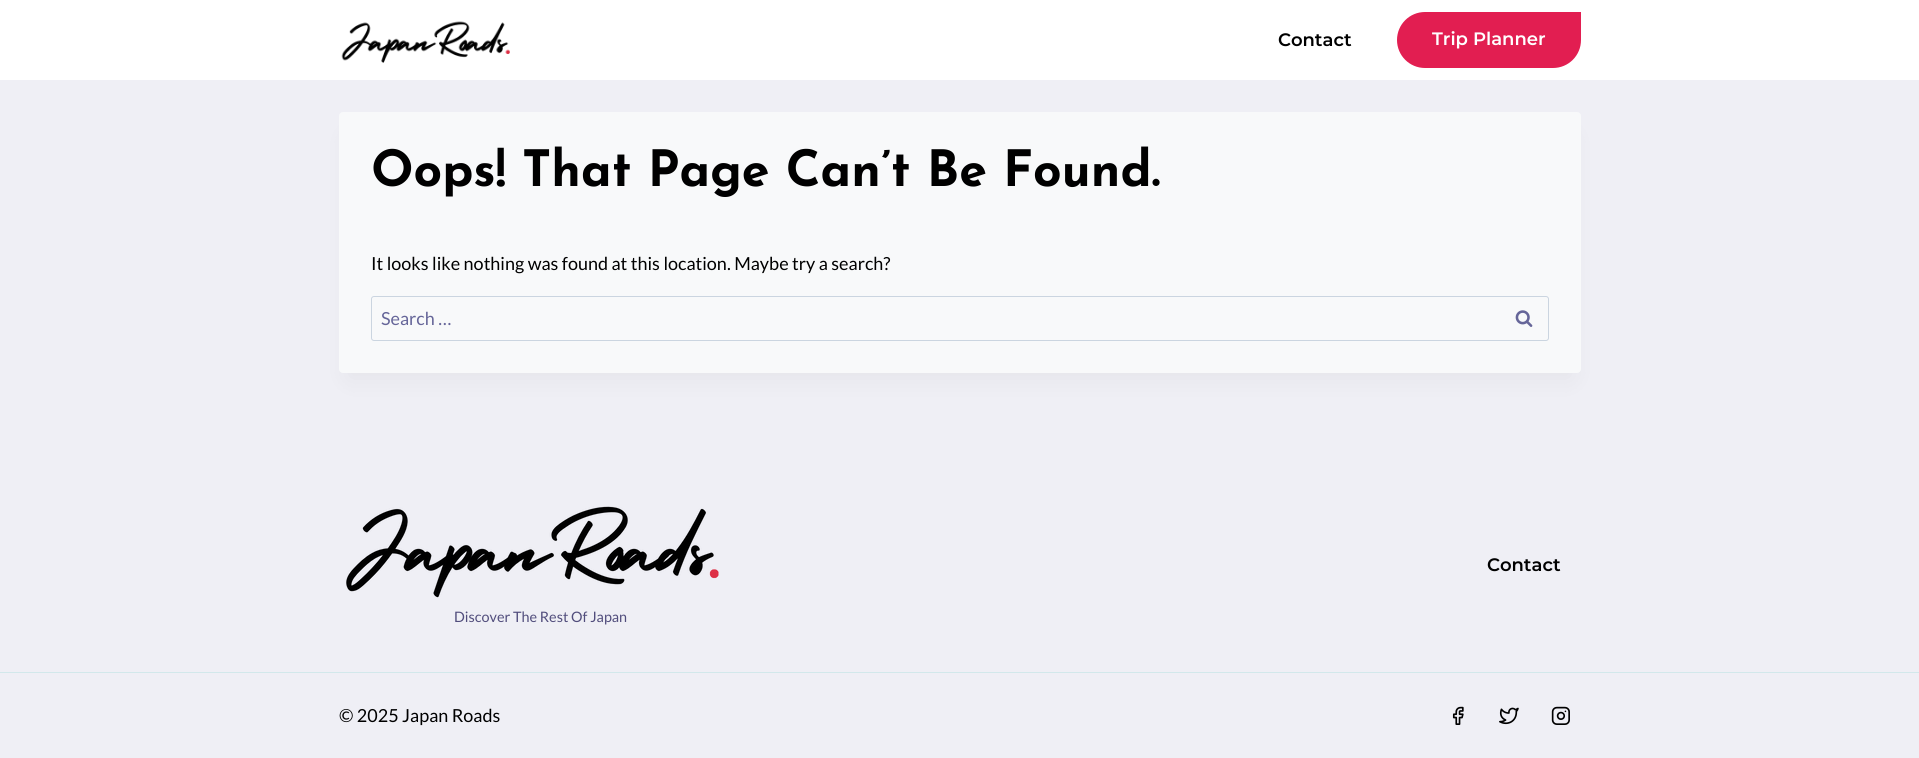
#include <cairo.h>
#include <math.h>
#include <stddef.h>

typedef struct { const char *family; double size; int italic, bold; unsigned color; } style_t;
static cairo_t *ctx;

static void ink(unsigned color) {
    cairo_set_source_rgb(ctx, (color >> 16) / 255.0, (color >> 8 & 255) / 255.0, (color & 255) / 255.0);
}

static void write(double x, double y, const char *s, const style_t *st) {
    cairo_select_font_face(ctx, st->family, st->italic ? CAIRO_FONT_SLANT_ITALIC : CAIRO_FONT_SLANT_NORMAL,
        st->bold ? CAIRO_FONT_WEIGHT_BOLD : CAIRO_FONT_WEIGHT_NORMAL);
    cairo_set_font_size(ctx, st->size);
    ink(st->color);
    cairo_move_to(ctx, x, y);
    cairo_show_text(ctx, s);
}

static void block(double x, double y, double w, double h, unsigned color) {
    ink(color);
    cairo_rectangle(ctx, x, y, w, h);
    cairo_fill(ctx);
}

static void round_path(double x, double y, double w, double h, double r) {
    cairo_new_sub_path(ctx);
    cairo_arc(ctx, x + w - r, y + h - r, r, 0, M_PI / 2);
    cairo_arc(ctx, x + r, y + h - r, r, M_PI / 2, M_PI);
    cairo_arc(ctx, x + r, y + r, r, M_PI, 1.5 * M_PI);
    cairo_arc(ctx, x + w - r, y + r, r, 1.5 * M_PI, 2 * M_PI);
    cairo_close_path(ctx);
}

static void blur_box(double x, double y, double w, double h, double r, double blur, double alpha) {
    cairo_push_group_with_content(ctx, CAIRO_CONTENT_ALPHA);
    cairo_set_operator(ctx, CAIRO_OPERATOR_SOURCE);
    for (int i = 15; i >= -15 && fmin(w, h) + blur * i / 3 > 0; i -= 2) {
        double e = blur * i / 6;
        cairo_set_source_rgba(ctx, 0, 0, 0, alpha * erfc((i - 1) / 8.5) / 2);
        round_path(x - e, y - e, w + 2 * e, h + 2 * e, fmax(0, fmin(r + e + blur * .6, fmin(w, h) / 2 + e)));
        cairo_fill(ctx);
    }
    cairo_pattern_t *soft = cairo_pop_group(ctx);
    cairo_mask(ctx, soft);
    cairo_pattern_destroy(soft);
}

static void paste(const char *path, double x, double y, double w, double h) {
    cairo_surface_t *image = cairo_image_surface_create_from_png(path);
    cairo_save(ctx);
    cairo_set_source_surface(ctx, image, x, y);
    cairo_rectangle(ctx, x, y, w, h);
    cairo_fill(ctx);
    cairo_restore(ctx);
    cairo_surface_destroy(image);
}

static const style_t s1 = {"Montserrat Thin", 18, 0, 0, 0x000000};
static const style_t s2 = {"Montserrat Thin", 18, 0, 0, 0xffffff};
static const style_t s3 = {"Josefin Sans", 50, 0, 1, 0x000000};
static const style_t s4 = {"Lato", 18, 0, 0, 0x000000};
static const style_t s5 = {"Lato", 18, 0, 0, 0x666699};
static const style_t s6 = {"Lato", 14.4, 0, 0, 0x514d7c};

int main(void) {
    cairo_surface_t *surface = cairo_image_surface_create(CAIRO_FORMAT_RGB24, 1919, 758);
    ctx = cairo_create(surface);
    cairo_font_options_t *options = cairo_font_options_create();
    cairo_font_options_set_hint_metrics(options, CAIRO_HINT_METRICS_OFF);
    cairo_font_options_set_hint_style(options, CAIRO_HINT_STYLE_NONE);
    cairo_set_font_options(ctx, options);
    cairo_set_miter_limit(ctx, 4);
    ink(0xefeff5);
    cairo_paint(ctx);
    block(0, 0, 1919, 80, 0xffffff);
    paste("pic1.png", 341, 21, 169, 42);
    write(1278, 46, "Contact", &s1);
    ink(0xe21e51);
    cairo_new_path(ctx);
    cairo_move_to(ctx, 1425, 12);
    cairo_line_to(ctx, 1581, 12);
    cairo_line_to(ctx, 1581, 40);
    cairo_curve_to(ctx, 1581, 55.5, 1568.5, 68, 1553, 68);
    cairo_line_to(ctx, 1425, 68);
    cairo_curve_to(ctx, 1409.5, 68, 1397, 55.5, 1397, 40);
    cairo_curve_to(ctx, 1397, 24.5, 1409.5, 12, 1425, 12);
    cairo_close_path(ctx);
    cairo_fill(ctx);
    write(1432, 45, "Trip Planner", &s2);
    ink(0x000000);
    blur_box(349, 137, 1222, 241, 0, 12.5, 0.05);
    ink(0xf8f9fa);
    round_path(339, 112, 1242, 261, 4);
    cairo_fill(ctx);
    write(371, 186, "Oops! That Page Can’t Be Found.", &s3);
    write(371, 270, "It looks like nothing was found at this location. Maybe try a search?", &s4);
    round_path(371.5, 296.5, 1177, 44, 2.5);
    ink(0xcbd5e0);
    cairo_set_line_width(ctx, 1);
    cairo_stroke(ctx);
    write(381, 325, "Search …", &s5);
    paste("pic2.png", 1515, 310, 18, 17);
    write(1487, 571, "Contact", &s1);
    paste("pic3.png", 346, 506, 373, 92);
    write(454, 622, "Discover The Rest Of Japan", &s6);
    block(0, 672, 1919, 1, 0xd2e8eb);
    write(339, 722, "© 2025 Japan Roads", &s4);
    paste("pic4.png", 1452, 706, 12, 19);
    paste("pic5.png", 1499, 707, 20, 18);
    paste("pic6.png", 1551, 706, 19, 19);
    cairo_surface_write_to_png(surface, "screenshot.png");
    cairo_font_options_destroy(options);
    cairo_destroy(ctx);
    cairo_surface_destroy(surface);
    return 0;
}
